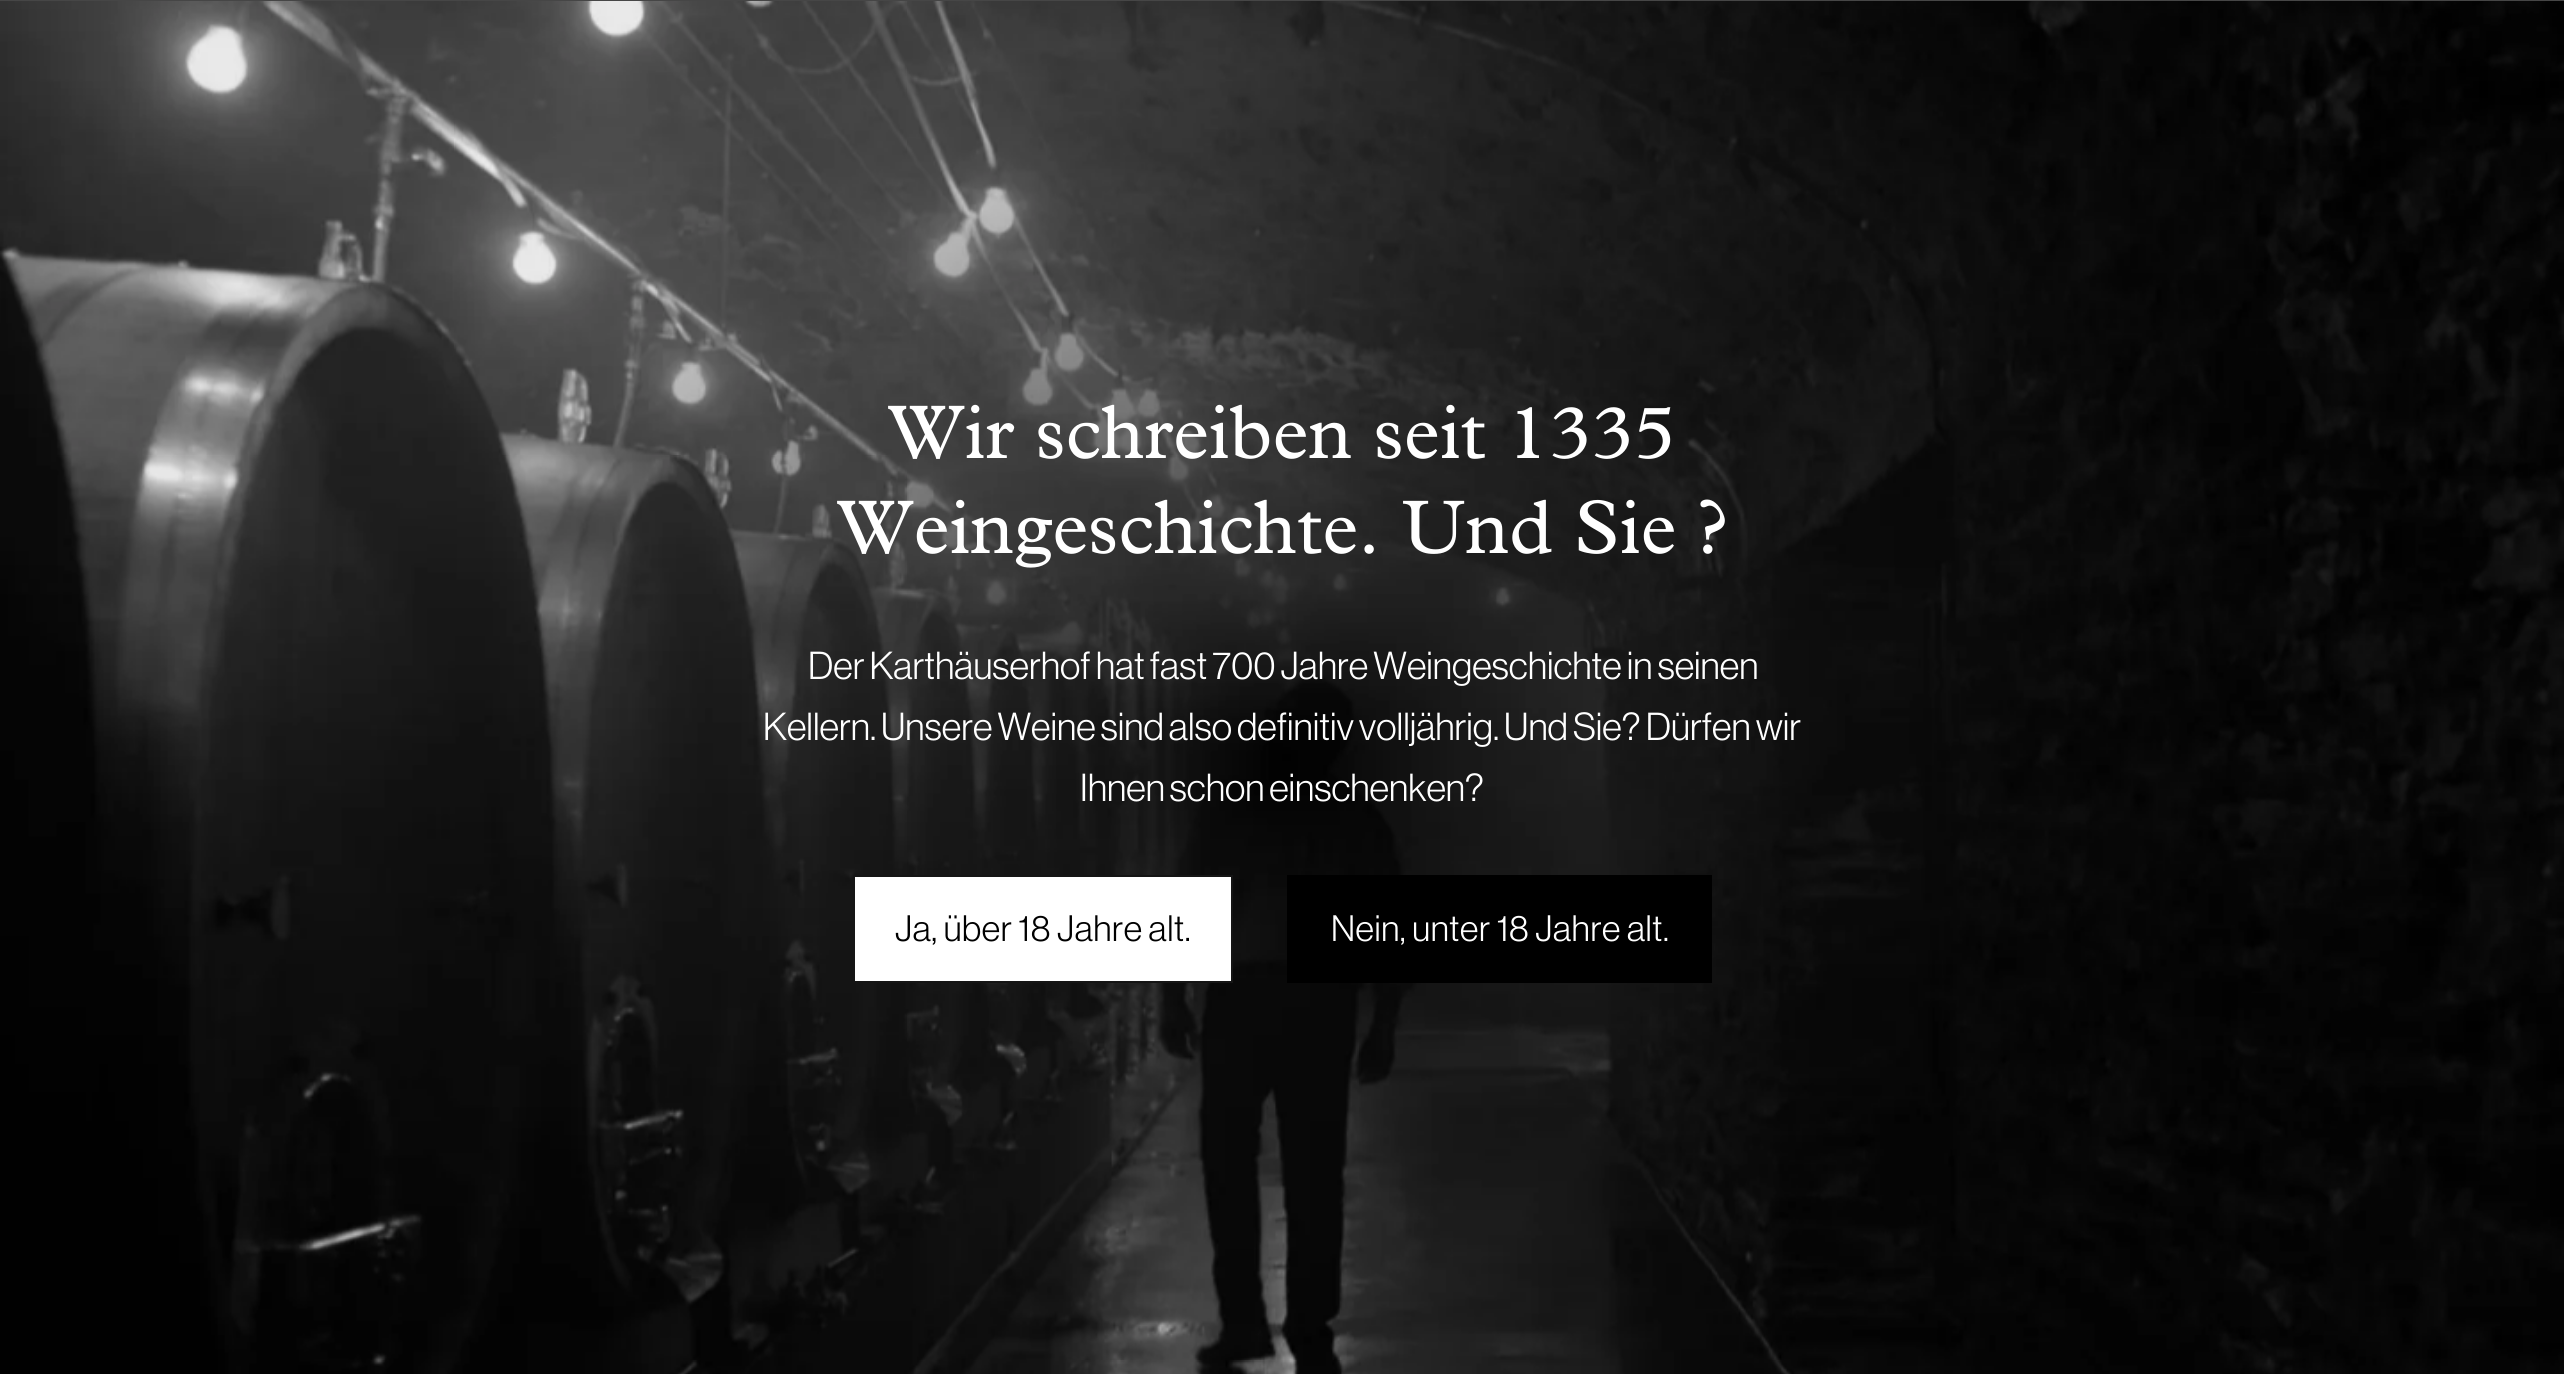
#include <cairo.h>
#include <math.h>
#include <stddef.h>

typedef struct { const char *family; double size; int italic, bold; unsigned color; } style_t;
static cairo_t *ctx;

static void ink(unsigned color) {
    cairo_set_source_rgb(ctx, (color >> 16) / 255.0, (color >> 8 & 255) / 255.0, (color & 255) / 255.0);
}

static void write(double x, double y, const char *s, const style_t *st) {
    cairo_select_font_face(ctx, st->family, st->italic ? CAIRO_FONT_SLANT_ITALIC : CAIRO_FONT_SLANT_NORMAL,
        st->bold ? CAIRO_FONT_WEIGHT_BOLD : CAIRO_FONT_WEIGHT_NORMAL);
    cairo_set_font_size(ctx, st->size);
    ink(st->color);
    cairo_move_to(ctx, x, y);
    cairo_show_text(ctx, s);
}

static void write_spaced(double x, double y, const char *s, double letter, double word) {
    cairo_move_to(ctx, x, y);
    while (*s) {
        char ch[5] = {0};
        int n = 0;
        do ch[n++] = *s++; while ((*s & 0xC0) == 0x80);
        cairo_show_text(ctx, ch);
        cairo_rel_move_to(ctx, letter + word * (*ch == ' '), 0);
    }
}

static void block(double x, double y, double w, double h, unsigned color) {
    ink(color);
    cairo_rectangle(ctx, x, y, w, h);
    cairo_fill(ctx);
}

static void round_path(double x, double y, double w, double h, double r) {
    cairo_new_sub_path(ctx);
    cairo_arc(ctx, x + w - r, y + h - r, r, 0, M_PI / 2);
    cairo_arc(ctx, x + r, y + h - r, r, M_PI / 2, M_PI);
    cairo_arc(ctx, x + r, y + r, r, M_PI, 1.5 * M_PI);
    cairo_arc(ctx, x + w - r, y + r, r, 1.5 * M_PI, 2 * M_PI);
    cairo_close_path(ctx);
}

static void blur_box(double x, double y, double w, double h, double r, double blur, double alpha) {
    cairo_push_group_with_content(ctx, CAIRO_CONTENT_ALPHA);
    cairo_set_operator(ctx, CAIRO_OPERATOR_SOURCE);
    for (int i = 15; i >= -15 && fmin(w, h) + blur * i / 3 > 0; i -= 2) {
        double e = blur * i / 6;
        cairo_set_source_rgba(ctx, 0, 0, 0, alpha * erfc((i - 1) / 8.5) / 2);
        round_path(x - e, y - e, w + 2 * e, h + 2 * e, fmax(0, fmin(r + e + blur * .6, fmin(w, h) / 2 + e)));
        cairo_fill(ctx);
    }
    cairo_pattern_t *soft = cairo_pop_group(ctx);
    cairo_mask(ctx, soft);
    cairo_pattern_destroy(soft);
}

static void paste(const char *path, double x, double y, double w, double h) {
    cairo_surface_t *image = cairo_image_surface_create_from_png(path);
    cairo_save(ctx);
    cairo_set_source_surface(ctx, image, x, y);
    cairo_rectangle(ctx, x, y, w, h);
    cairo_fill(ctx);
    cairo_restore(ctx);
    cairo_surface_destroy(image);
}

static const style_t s1 = {"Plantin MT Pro", 76.5, 0, 0, 0xffffff};

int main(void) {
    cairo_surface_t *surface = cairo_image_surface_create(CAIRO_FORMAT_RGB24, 2564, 1374);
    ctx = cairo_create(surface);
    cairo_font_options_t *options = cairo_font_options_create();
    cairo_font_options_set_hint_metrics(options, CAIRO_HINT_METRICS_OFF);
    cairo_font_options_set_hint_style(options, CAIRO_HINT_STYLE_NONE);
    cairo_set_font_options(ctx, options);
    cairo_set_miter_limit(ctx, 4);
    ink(0x4d4d4d);
    cairo_paint(ctx);
    ink(0x000000);
    blur_box(0, 11, 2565, 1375, 0, 45, 0.25);
    paste("pic1.png", 0, 1, 2564, 1373);
    write(888, 458, "Wir schreiben seit 1335", &s1);
    write(837, 553, "Weingeschichte. Und Sie ?", &s1);
    cairo_select_font_face(ctx, "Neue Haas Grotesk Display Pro", CAIRO_FONT_SLANT_NORMAL, CAIRO_FONT_WEIGHT_NORMAL);
    cairo_set_font_size(ctx, 38.25);
    write_spaced(808, 679, "Der Karthäuserhof hat fast 700 Jahre Weingeschichte in seinen", 0, -0.75);
    write_spaced(763, 740, "Kellern. Unsere Weine sind also definitiv volljährig. Und Sie? Dürfen wir", 0, -0.75);
    write_spaced(1080, 801, "Ihnen schon einschenken?", 0, -1);
    cairo_rectangle(ctx, 854, 876, 378, 106);
    cairo_fill_preserve(ctx);
    ink(0x151515);
    cairo_stroke(ctx);
    cairo_set_font_size(ctx, 36);
    ink(0x000000);
    write_spaced(895, 941, "Ja, über 18 Jahre alt.", 0.6, 0);
    block(1287, 875, 425, 108, 0x000000);
    ink(0xffffff);
    write_spaced(1331, 941, "Nein, unter 18 Jahre alt.", 0.6, 0);
    cairo_surface_write_to_png(surface, "screenshot.png");
    cairo_font_options_destroy(options);
    cairo_destroy(ctx);
    cairo_surface_destroy(surface);
    return 0;
}
